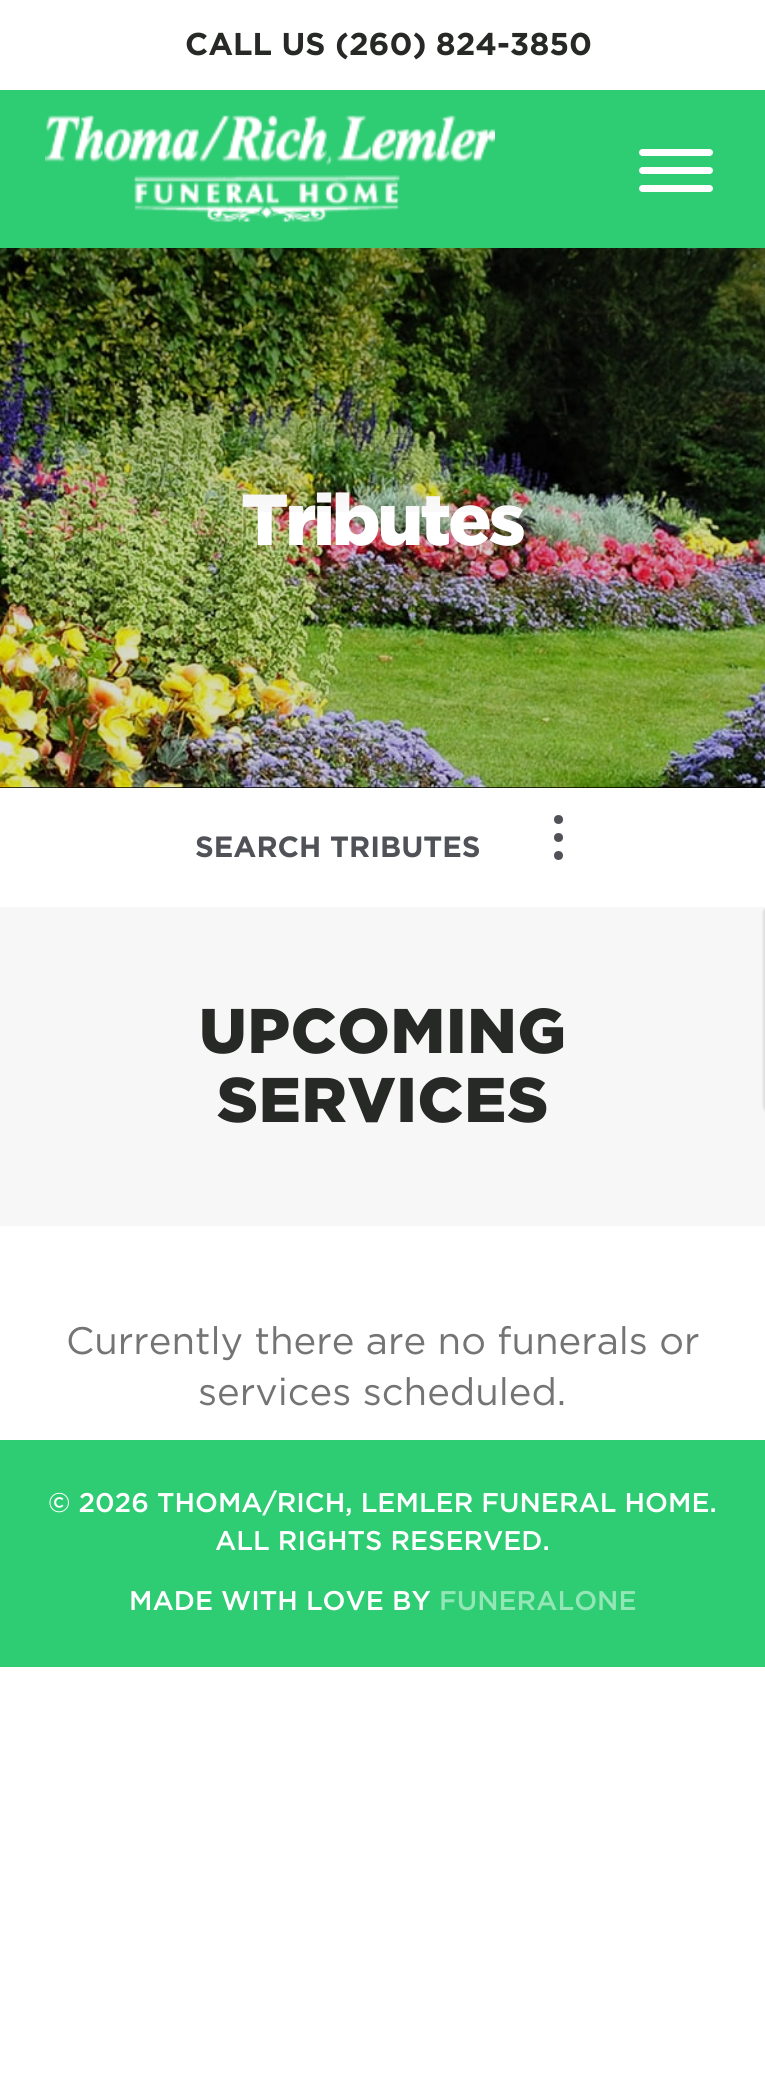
#include <cairo.h>
#include <math.h>
#include <stddef.h>

typedef struct { const char *family; double size; int italic, bold; unsigned color; } style_t;
static cairo_t *ctx;

static void ink(unsigned color) {
    cairo_set_source_rgb(ctx, (color >> 16) / 255.0, (color >> 8 & 255) / 255.0, (color & 255) / 255.0);
}

static void write(double x, double y, const char *s, const style_t *st) {
    cairo_select_font_face(ctx, st->family, st->italic ? CAIRO_FONT_SLANT_ITALIC : CAIRO_FONT_SLANT_NORMAL,
        st->bold ? CAIRO_FONT_WEIGHT_BOLD : CAIRO_FONT_WEIGHT_NORMAL);
    cairo_set_font_size(ctx, st->size);
    ink(st->color);
    cairo_move_to(ctx, x, y);
    cairo_show_text(ctx, s);
}

static void write_spaced(double x, double y, const char *s, double letter, double word) {
    cairo_move_to(ctx, x, y);
    while (*s) {
        char ch[5] = {0};
        int n = 0;
        do ch[n++] = *s++; while ((*s & 0xC0) == 0x80);
        cairo_show_text(ctx, ch);
        cairo_rel_move_to(ctx, letter + word * (*ch == ' '), 0);
    }
}

static void block(double x, double y, double w, double h, unsigned color) {
    ink(color);
    cairo_rectangle(ctx, x, y, w, h);
    cairo_fill(ctx);
}

static void round_path(double x, double y, double w, double h, double r) {
    cairo_new_sub_path(ctx);
    cairo_arc(ctx, x + w - r, y + h - r, r, 0, M_PI / 2);
    cairo_arc(ctx, x + r, y + h - r, r, M_PI / 2, M_PI);
    cairo_arc(ctx, x + r, y + r, r, M_PI, 1.5 * M_PI);
    cairo_arc(ctx, x + w - r, y + r, r, 1.5 * M_PI, 2 * M_PI);
    cairo_close_path(ctx);
}

static void blur_box(double x, double y, double w, double h, double r, double blur, double alpha) {
    cairo_push_group_with_content(ctx, CAIRO_CONTENT_ALPHA);
    cairo_set_operator(ctx, CAIRO_OPERATOR_SOURCE);
    for (int i = 15; i >= -15 && fmin(w, h) + blur * i / 3 > 0; i -= 2) {
        double e = blur * i / 6;
        cairo_set_source_rgba(ctx, 0, 0, 0, alpha * erfc((i - 1) / 8.5) / 2);
        round_path(x - e, y - e, w + 2 * e, h + 2 * e, fmax(0, fmin(r + e + blur * .6, fmin(w, h) / 2 + e)));
        cairo_fill(ctx);
    }
    cairo_pattern_t *soft = cairo_pop_group(ctx);
    cairo_mask(ctx, soft);
    cairo_pattern_destroy(soft);
}

static void paste(const char *path, double x, double y, double w, double h) {
    cairo_surface_t *image = cairo_image_surface_create_from_png(path);
    cairo_save(ctx);
    cairo_set_source_surface(ctx, image, x, y);
    cairo_rectangle(ctx, x, y, w, h);
    cairo_fill(ctx);
    cairo_restore(ctx);
    cairo_surface_destroy(image);
}

static const style_t s1 = {"Gotham", 31.5, 0, 1, 0x272926};
static const style_t s2 = {"Gotham", 29.25, 0, 1, 0x505258};
static const style_t s3 = {"Gotham", 38.25, 0, 0, 0x747474};
static const style_t s4 = {"Gotham Medium", 27, 0, 0, 0xffffff};
static const style_t s5 = {"Gotham Medium", 27, 0, 0, 0x93e7b7};

int main(void) {
    cairo_surface_t *surface = cairo_image_surface_create(CAIRO_FORMAT_RGB24, 765, 2075);
    ctx = cairo_create(surface);
    cairo_font_options_t *options = cairo_font_options_create();
    cairo_font_options_set_hint_metrics(options, CAIRO_HINT_METRICS_OFF);
    cairo_font_options_set_hint_style(options, CAIRO_HINT_STYLE_NONE);
    cairo_set_font_options(ctx, options);
    cairo_set_miter_limit(ctx, 4);
    ink(0xffffff);
    cairo_paint(ctx);
    block(0, 90, 765, 158, 0x2ecc73);
    write(185, 55, "CALL US (260) 824-3850", &s1);
    paste("pic1.png", 45, 115, 450, 108);
    ink(0xffffff);
    round_path(639, 149, 74, 7, 3.5);
    cairo_fill(ctx);
    round_path(639, 167, 74, 7, 3.5);
    cairo_fill(ctx);
    round_path(639, 185, 74, 7, 3.5);
    cairo_fill(ctx);
    block(0, 248, 765, 540, 0x000000);
    paste("pic2.png", 0, 248, 765, 540);
    cairo_select_font_face(ctx, "Gotham Black", CAIRO_FONT_SLANT_NORMAL, CAIRO_FONT_WEIGHT_NORMAL);
    cairo_set_font_size(ctx, 72);
    ink(0xffffff);
    write_spaced(241, 545, "Tributes", -3, 0);
    paste("pic3.png", 0, 248, 765, 264);
    write(195, 857, "SEARCH TRIBUTES", &s2);
    cairo_new_path(ctx);
    cairo_arc(ctx, 558.5, 819.5, 4.5, 0, 2 * M_PI);
    cairo_fill(ctx);
    cairo_arc(ctx, 558.5, 837.5, 4.5, 0, 2 * M_PI);
    cairo_fill(ctx);
    cairo_arc(ctx, 558.5, 855.5, 4.5, 0, 2 * M_PI);
    cairo_fill(ctx);
    block(0, 907, 765, 319, 0xf7f7f7);
    ink(0x000000);
    blur_box(763, 907, 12, 205, 7, 1, 0.1);
    cairo_select_font_face(ctx, "Gotham Black", CAIRO_FONT_SLANT_NORMAL, CAIRO_FONT_WEIGHT_NORMAL);
    cairo_set_font_size(ctx, 63);
    ink(0x272926);
    write_spaced(199, 1053, "UPCOMING", 0.75, 0);
    write_spaced(217, 1122, "SERVICES", 0.75, 0);
    write(66, 1354, "Currently there are no funerals or", &s3);
    write(198, 1405, "services scheduled.", &s3);
    block(0, 1440, 765, 227, 0x2ecc73);
    write(48, 1512, "© 2026 THOMA/RICH, LEMLER FUNERAL HOME.", &s4);
    write(215, 1550, "ALL RIGHTS RESERVED.", &s4);
    write(129, 1610, "MADE WITH LOVE BY", &s4);
    write(439, 1610, "FUNERALONE", &s5);
    cairo_surface_write_to_png(surface, "screenshot.png");
    cairo_font_options_destroy(options);
    cairo_destroy(ctx);
    cairo_surface_destroy(surface);
    return 0;
}
